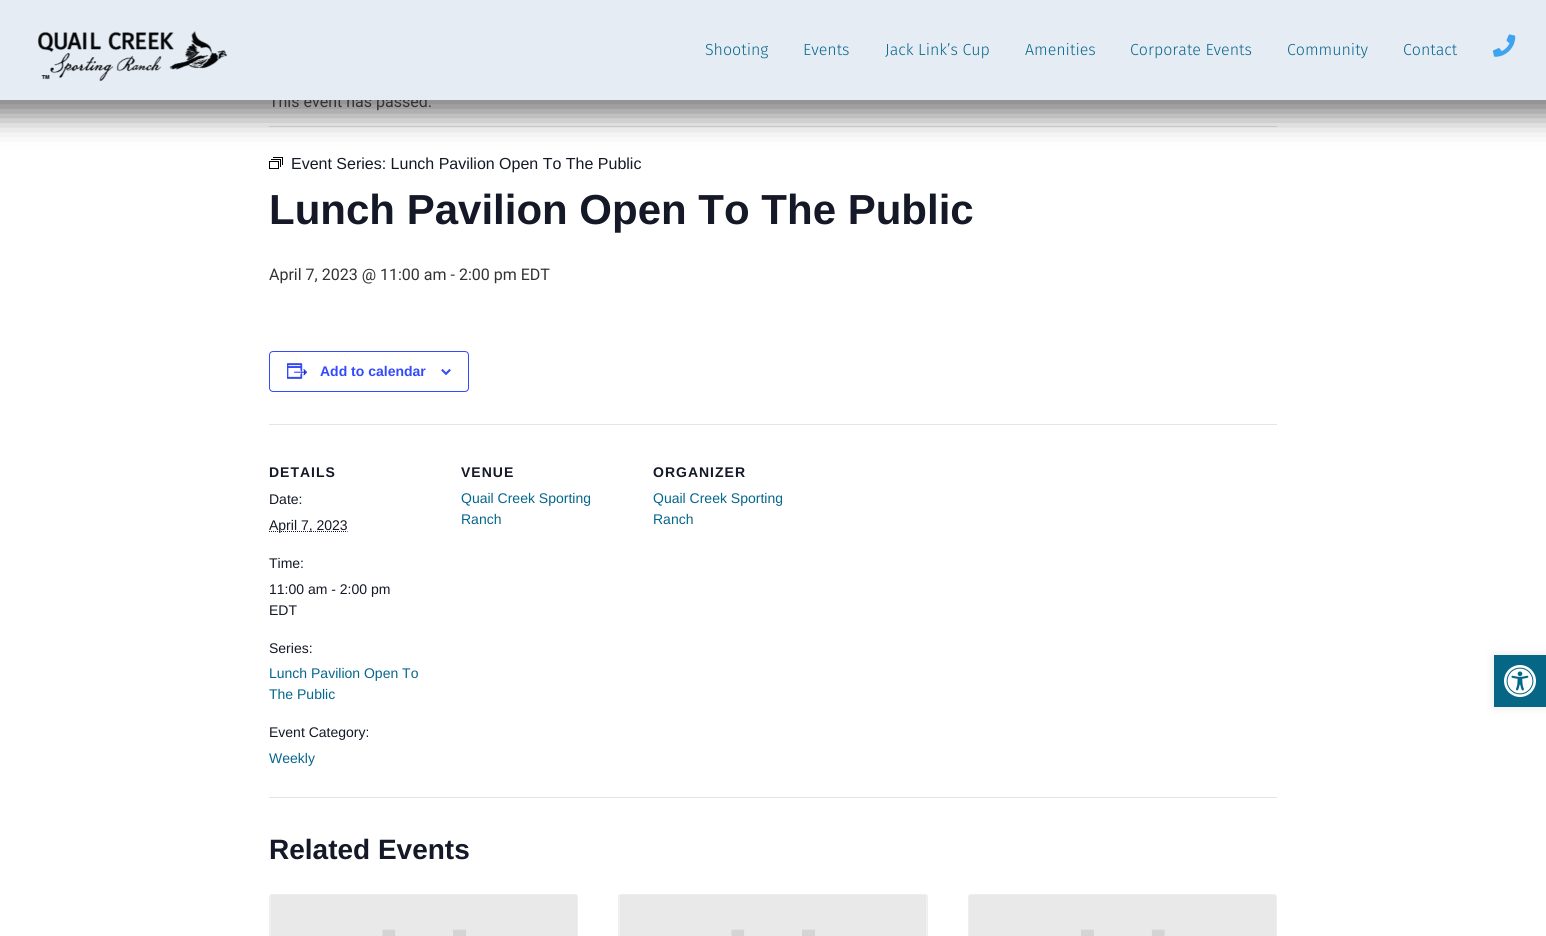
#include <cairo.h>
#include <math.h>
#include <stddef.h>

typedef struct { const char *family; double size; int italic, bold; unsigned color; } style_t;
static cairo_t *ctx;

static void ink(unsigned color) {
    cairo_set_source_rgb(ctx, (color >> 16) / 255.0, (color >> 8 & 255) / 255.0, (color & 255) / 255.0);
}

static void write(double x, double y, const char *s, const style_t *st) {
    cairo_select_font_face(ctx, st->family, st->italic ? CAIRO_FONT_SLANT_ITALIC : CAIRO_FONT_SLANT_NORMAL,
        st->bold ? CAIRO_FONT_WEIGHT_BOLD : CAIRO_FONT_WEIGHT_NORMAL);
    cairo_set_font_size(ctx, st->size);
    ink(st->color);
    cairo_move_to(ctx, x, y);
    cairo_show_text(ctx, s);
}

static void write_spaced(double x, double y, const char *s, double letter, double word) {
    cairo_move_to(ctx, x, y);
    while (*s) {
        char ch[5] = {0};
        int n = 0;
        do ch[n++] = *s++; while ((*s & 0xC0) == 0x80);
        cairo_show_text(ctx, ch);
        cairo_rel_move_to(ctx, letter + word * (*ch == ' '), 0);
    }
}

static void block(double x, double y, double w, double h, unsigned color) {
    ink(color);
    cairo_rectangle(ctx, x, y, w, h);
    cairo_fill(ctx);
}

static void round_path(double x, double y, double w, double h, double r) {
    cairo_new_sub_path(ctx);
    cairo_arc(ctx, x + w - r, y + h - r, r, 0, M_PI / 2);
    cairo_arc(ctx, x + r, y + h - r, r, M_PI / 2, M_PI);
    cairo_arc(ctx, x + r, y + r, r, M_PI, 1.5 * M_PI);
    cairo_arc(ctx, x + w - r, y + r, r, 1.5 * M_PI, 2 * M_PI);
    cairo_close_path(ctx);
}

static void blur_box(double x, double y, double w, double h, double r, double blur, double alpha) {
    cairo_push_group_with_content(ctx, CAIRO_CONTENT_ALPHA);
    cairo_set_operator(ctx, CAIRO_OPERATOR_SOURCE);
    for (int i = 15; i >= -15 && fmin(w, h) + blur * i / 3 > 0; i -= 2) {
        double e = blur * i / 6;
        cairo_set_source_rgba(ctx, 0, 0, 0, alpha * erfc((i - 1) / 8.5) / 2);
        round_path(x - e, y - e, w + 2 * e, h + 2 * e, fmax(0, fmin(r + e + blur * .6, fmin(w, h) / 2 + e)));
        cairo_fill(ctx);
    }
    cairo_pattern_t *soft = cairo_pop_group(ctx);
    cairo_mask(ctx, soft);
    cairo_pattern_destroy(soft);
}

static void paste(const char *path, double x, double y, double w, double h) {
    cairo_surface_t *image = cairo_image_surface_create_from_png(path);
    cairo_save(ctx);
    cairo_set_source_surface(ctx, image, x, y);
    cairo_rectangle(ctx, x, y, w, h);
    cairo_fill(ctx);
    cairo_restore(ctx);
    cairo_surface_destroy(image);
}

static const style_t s1 = {"Roboto", 16, 0, 0, 0x333333};
static const style_t s2 = {"Fira Sans Light", 16, 0, 0, 0x05668d};
static const style_t s3 = {"Liberation Sans", 16, 0, 0, 0x141827};
static const style_t s4 = {"Liberation Sans", 42, 0, 1, 0x141827};
static const style_t s5 = {"Liberation Sans", 14, 0, 1, 0x334aff};
static const style_t s6 = {"Liberation Sans", 14, 0, 0, 0x141827};
static const style_t s7 = {"Liberation Sans", 14, 0, 0, 0x05668d};
static const style_t s8 = {"Liberation Sans", 28, 0, 1, 0x141827};

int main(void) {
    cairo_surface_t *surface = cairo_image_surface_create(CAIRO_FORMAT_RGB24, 1546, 936);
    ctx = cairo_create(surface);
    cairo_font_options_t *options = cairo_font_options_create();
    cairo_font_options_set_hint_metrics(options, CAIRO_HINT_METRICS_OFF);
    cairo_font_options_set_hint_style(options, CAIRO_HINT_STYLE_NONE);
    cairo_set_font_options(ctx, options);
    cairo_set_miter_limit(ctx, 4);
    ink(0xffffff);
    cairo_paint(ctx);
    block(269, 126, 1008, 1, 0xe4e4e4);
    paste("pic3.png", 269, 157, 14, 12);
    ink(0x000000);
    blur_box(-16, -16, 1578, 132, 0, 14, 0.5);
    write(269, 107, "This event has passed.", &s1);
    block(0, 0, 1546, 100, 0xe6ecf4);
    paste("pic1.png", 37, 31, 191, 50);
    write(705, 55, "Shooting", &s2);
    write(803, 55, "Events", &s2);
    write(885, 55, "Jack Link’s Cup", &s2);
    write(1025, 55, "Amenities", &s2);
    write(1130, 55, "Corporate Events", &s2);
    write(1287, 55, "Community", &s2);
    write(1403, 55, "Contact", &s2);
    paste("pic2.png", 1492, 34, 24, 23);
    write(291, 169, "Event Series: Lunch Pavilion Open To The Public", &s3);
    write(269, 224, "Lunch Pavilion Open To The Public", &s4);
    write(269, 280, "April 7, 2023 @ 11:00 am - 2:00 pm EDT", &s1);
    round_path(269.5, 351.5, 199, 40, 3.5);
    ink(0x334aff);
    cairo_set_line_width(ctx, 1);
    cairo_stroke(ctx);
    paste("pic4.png", 287, 363, 21, 16);
    write(320, 376, "Add to calendar", &s5);
    paste("pic5.png", 441, 369, 10, 6);
    block(269, 424, 1008, 1, 0xe4e4e4);
    ink(0x141827);
    write_spaced(269, 477, "DETAILS", 1, 0);
    write(269, 504, "Date:", &s6);
    cairo_new_path(ctx);
    cairo_move_to(ctx, 269, 531.5);
    cairo_line_to(ctx, 347.5, 531.5);
    cairo_set_dash(ctx, (double[]){1, 1}, 2, 0);
    cairo_stroke(ctx);
    write(269, 530, "April 7, 2023", &s6);
    write(269, 568, "Time:", &s6);
    write(269, 594, "11:00 am - 2:00 pm", &s6);
    write(269, 615, "EDT", &s6);
    write(269, 653, "Series:", &s6);
    write(269, 678, "Lunch Pavilion Open To", &s7);
    write(269, 699, "The Public", &s7);
    write(269, 737, "Event Category:", &s6);
    write(269, 763, "Weekly", &s7);
    cairo_select_font_face(ctx, "Liberation Sans", CAIRO_FONT_SLANT_NORMAL, CAIRO_FONT_WEIGHT_BOLD);
    ink(0x141827);
    write_spaced(461, 477, "VENUE", 1, 0);
    write(461, 503, "Quail Creek Sporting", &s7);
    write(461, 524, "Ranch", &s7);
    cairo_select_font_face(ctx, "Liberation Sans", CAIRO_FONT_SLANT_NORMAL, CAIRO_FONT_WEIGHT_BOLD);
    ink(0x141827);
    write_spaced(653, 477, "ORGANIZER", 1, 0);
    write(653, 503, "Quail Creek Sporting", &s7);
    write(653, 524, "Ranch", &s7);
    block(269, 797, 1008, 1, 0xe4e4e4);
    write(269, 859, "Related Events", &s8);
    ink(0xfafafa);
    round_path(269.5, 894.5, 308, 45, 2.5);
    cairo_fill_preserve(ctx);
    ink(0xeeeeee);
    cairo_set_dash(ctx, NULL, 0, 0);
    cairo_stroke(ctx);
    paste("pic6.png", 270, 895, 307, 41);
    ink(0xfafafa);
    round_path(618.5, 894.5, 309, 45, 2.5);
    cairo_fill_preserve(ctx);
    ink(0xeeeeee);
    cairo_stroke(ctx);
    paste("pic7.png", 619, 895, 308, 41);
    round_path(968.5, 894.5, 308, 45, 2.5);
    cairo_stroke(ctx);
    paste("pic8.png", 969, 895, 307, 41);
    ink(0x000000);
    blur_box(1494, 655, 52, 52, 0, 5, 0.1);
    block(1494, 655, 52, 52, 0x056686);
    paste("pic9.png", 1504, 665, 32, 32);
    cairo_surface_write_to_png(surface, "screenshot.png");
    cairo_font_options_destroy(options);
    cairo_destroy(ctx);
    cairo_surface_destroy(surface);
    return 0;
}
